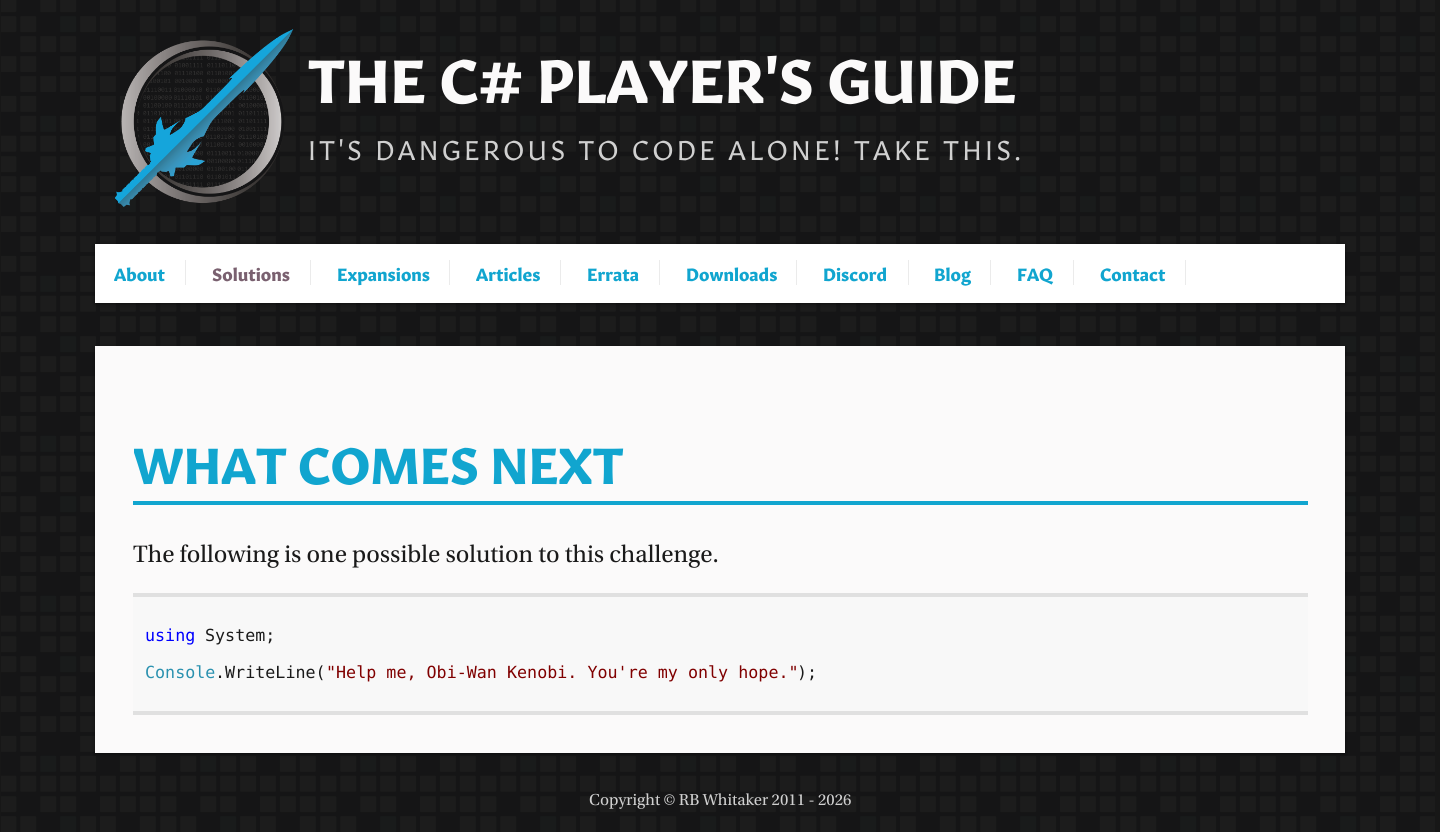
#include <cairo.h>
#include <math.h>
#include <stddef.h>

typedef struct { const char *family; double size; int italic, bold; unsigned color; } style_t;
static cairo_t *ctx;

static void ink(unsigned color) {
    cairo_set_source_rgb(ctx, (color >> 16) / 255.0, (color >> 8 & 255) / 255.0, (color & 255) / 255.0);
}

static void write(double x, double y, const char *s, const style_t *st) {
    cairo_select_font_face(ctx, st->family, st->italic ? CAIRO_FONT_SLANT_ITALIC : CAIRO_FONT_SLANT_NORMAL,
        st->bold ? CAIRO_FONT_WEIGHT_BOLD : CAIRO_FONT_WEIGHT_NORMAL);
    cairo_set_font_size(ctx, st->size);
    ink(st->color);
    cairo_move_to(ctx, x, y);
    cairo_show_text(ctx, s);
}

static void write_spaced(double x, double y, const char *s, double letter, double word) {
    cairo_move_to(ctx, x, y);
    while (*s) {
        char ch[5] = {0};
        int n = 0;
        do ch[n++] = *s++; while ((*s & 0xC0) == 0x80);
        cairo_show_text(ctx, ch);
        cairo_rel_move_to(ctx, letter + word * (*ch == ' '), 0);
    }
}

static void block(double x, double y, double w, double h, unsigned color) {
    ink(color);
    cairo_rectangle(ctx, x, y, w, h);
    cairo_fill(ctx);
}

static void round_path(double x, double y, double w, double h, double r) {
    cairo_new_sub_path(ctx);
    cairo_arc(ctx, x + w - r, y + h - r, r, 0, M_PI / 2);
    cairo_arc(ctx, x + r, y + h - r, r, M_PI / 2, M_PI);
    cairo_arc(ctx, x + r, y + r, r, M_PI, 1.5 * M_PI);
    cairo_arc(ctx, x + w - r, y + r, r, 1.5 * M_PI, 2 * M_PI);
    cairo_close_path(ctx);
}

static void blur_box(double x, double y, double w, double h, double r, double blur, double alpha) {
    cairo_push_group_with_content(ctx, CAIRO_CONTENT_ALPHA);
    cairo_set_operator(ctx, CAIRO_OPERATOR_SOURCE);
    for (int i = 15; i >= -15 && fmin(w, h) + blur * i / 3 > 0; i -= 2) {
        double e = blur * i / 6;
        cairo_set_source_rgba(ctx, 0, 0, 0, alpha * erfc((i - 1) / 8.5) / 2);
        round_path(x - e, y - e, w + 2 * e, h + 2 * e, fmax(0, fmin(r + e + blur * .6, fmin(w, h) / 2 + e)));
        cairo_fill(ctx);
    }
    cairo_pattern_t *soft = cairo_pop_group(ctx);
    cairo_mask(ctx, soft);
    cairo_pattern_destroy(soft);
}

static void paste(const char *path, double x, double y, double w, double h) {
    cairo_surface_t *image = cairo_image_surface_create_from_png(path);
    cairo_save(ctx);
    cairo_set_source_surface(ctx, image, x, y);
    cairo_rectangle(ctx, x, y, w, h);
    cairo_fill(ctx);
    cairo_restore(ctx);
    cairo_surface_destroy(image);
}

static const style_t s1 = {"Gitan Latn", 60, 0, 1, 0xfbfafa};
static const style_t s2 = {"Gitan Latn", 17.5, 0, 1, 0x11a5cf};
static const style_t s3 = {"Gitan Latn", 17.5, 0, 1, 0x79606f};
static const style_t s4 = {"Gitan Latn", 50, 0, 1, 0x11a5cf};
static const style_t s5 = {"Utopia", 25, 0, 0, 0x1a1a1a};
static const style_t s6 = {"DejaVu Sans Mono", 16.7, 0, 0, 0x0000ff};
static const style_t s7 = {"DejaVu Sans Mono", 16.7, 0, 0, 0x1a1a1a};
static const style_t s8 = {"DejaVu Sans Mono", 16.7, 0, 0, 0x2a91af};
static const style_t s9 = {"DejaVu Sans Mono", 16.7, 0, 0, 0x800000};
static const style_t s10 = {"Utopia", 16.7, 0, 0, 0xd0d0d0};

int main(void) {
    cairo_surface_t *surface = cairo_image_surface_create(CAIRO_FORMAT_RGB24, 1440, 832);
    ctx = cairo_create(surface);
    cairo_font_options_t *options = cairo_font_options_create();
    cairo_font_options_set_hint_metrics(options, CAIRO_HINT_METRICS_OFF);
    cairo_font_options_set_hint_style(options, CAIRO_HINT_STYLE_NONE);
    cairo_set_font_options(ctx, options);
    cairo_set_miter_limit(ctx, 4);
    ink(0x171717);
    cairo_paint(ctx);
    paste("pic1.png", 1, 0, 1434, 832);
    paste("pic2.png", 115, 29, 179, 178);
    write(308, 103, "THE C# PLAYER'S GUIDE", &s1);
    cairo_select_font_face(ctx, "Gitan Latn", CAIRO_FONT_SLANT_NORMAL, CAIRO_FONT_WEIGHT_NORMAL);
    cairo_set_font_size(ctx, 26.7);
    ink(0xd0d0d0);
    write_spaced(308, 160, "IT'S DANGEROUS TO CODE ALONE! TAKE THIS.", 3.4, 0);
    ink(0x000000);
    blur_box(95, 245, 1250, 59, 0, 2, 0.5);
    block(95, 244, 1250, 59, 0xffffff);
    write(114, 281, "About", &s2);
    block(185, 260, 1, 25, 0xebebeb);
    write(212, 281, "Solutions", &s3);
    block(310, 260, 1, 25, 0xebebeb);
    write(337, 281, "Expansions", &s2);
    block(449, 260, 1, 25, 0xebebeb);
    write(476, 281, "Articles", &s2);
    block(560, 260, 1, 25, 0xebebeb);
    write(587, 281, "Errata", &s2);
    block(659, 260, 1, 25, 0xebebeb);
    write(686, 281, "Downloads", &s2);
    block(796, 260, 1, 25, 0xebebeb);
    write(823, 281, "Discord", &s2);
    block(908, 260, 1, 25, 0xebebeb);
    write(934, 281, "Blog", &s2);
    block(990, 260, 1, 25, 0xebebeb);
    write(1017, 281, "FAQ", &s2);
    block(1073, 260, 1, 25, 0xebebeb);
    write(1100, 281, "Contact", &s2);
    block(1185, 260, 1, 25, 0xebebeb);
    ink(0x000000);
    blur_box(95, 348, 1250, 406, 0, 2, 0.5);
    block(95, 346, 1250, 407, 0xfbfafa);
    block(133, 501, 1175, 4, 0x11a5cf);
    write(133, 484, "WHAT COMES NEXT", &s4);
    write(133, 562, "The following is one possible solution to this challenge.", &s5);
    block(133, 597, 1175, 114, 0xf8f8f8);
    block(133, 593, 1175, 4, 0xe0e0e0);
    block(133, 711, 1175, 4, 0xe0e0e0);
    write(145, 641, "using", &s6);
    write(205, 641, "System;", &s7);
    write(145, 678, "Console", &s8);
    write(215, 678, ".WriteLine(", &s7);
    write(326, 678, "\"Help me, Obi-Wan Kenobi. You're my only hope.\"", &s9);
    write(797, 678, ");", &s7);
    write(589, 805, "Copyright © RB Whitaker 2011 - 2026", &s10);
    cairo_surface_write_to_png(surface, "screenshot.png");
    cairo_font_options_destroy(options);
    cairo_destroy(ctx);
    cairo_surface_destroy(surface);
    return 0;
}
